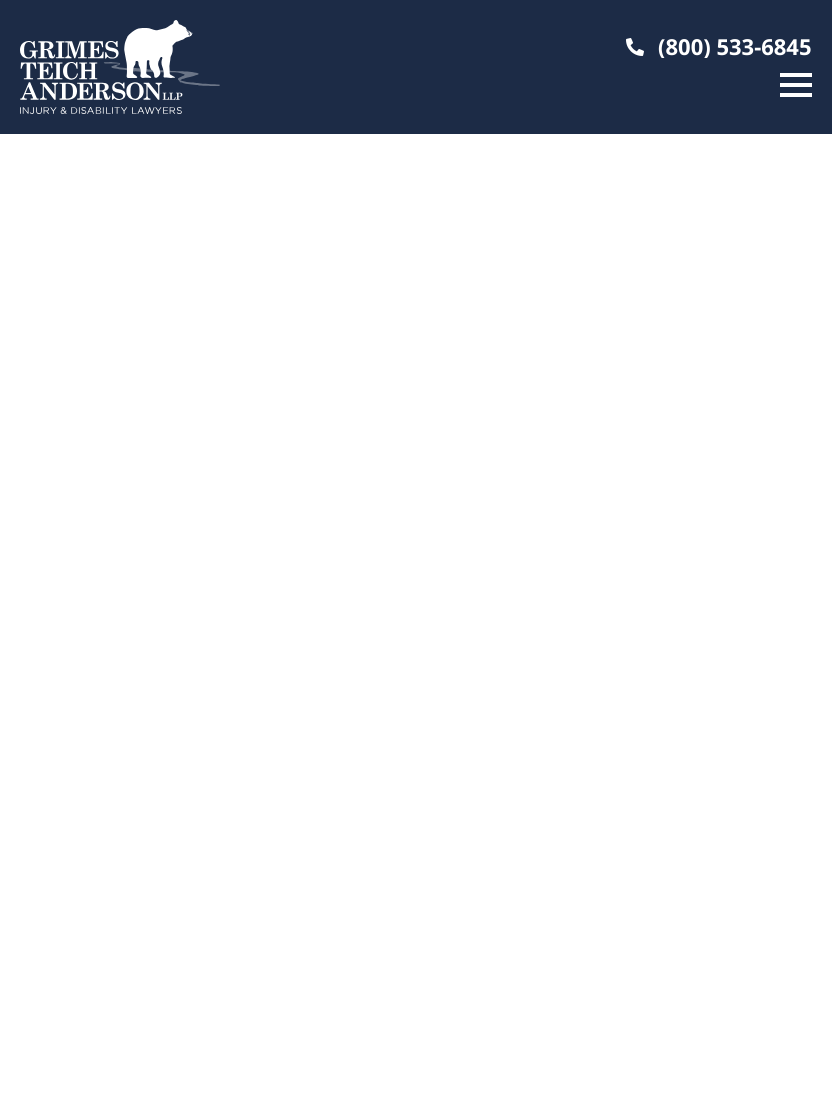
#include <cairo.h>
#include <math.h>
#include <stddef.h>

typedef struct { const char *family; double size; int italic, bold; unsigned color; } style_t;
static cairo_t *ctx;

static void ink(unsigned color) {
    cairo_set_source_rgb(ctx, (color >> 16) / 255.0, (color >> 8 & 255) / 255.0, (color & 255) / 255.0);
}

static void write(double x, double y, const char *s, const style_t *st) {
    cairo_select_font_face(ctx, st->family, st->italic ? CAIRO_FONT_SLANT_ITALIC : CAIRO_FONT_SLANT_NORMAL,
        st->bold ? CAIRO_FONT_WEIGHT_BOLD : CAIRO_FONT_WEIGHT_NORMAL);
    cairo_set_font_size(ctx, st->size);
    ink(st->color);
    cairo_move_to(ctx, x, y);
    cairo_show_text(ctx, s);
}

static void block(double x, double y, double w, double h, unsigned color) {
    ink(color);
    cairo_rectangle(ctx, x, y, w, h);
    cairo_fill(ctx);
}

static void paste(const char *path, double x, double y, double w, double h) {
    cairo_surface_t *image = cairo_image_surface_create_from_png(path);
    cairo_save(ctx);
    cairo_set_source_surface(ctx, image, x, y);
    cairo_rectangle(ctx, x, y, w, h);
    cairo_fill(ctx);
    cairo_restore(ctx);
    cairo_surface_destroy(image);
}

static const style_t s1 = {"Noto Sans", 22, 0, 1, 0xffffff};

int main(void) {
    cairo_surface_t *surface = cairo_image_surface_create(CAIRO_FORMAT_RGB24, 832, 1106);
    ctx = cairo_create(surface);
    cairo_font_options_t *options = cairo_font_options_create();
    cairo_font_options_set_hint_metrics(options, CAIRO_HINT_METRICS_OFF);
    cairo_font_options_set_hint_style(options, CAIRO_HINT_STYLE_NONE);
    cairo_set_font_options(ctx, options);
    cairo_set_miter_limit(ctx, 4);
    ink(0xffffff);
    cairo_paint(ctx);
    block(0, 0, 832, 134, 0x1c2b46);
    paste("pic1.png", 20, 20, 200, 94);
    paste("pic2.png", 626, 38, 18, 18);
    cairo_save(ctx);
    cairo_rectangle(ctx, 622, 36, 189, 22);
    cairo_clip(ctx);
    write(658, 55, "(800) 533-6845", &s1);
    cairo_restore(ctx);
    block(780, 83, 32, 4, 0xffffff);
    block(780, 73, 32, 4, 0xffffff);
    block(780, 93, 32, 4, 0xffffff);
    cairo_surface_write_to_png(surface, "screenshot.png");
    cairo_font_options_destroy(options);
    cairo_destroy(ctx);
    cairo_surface_destroy(surface);
    return 0;
}
